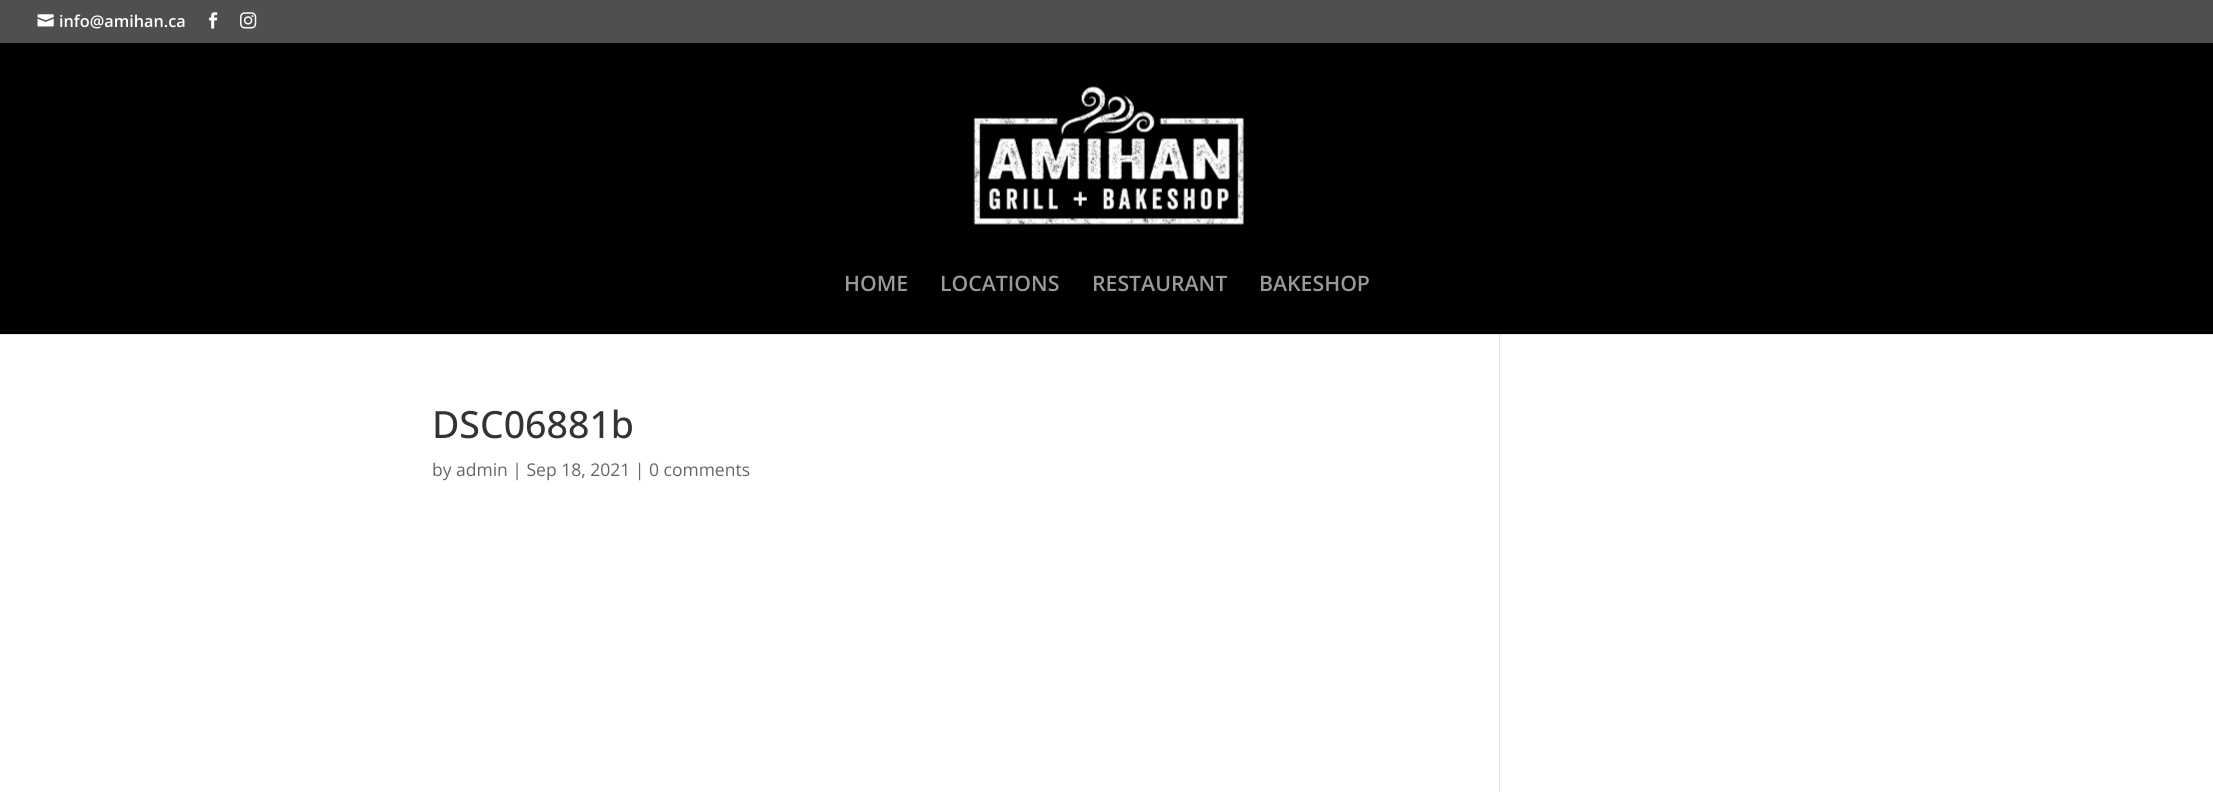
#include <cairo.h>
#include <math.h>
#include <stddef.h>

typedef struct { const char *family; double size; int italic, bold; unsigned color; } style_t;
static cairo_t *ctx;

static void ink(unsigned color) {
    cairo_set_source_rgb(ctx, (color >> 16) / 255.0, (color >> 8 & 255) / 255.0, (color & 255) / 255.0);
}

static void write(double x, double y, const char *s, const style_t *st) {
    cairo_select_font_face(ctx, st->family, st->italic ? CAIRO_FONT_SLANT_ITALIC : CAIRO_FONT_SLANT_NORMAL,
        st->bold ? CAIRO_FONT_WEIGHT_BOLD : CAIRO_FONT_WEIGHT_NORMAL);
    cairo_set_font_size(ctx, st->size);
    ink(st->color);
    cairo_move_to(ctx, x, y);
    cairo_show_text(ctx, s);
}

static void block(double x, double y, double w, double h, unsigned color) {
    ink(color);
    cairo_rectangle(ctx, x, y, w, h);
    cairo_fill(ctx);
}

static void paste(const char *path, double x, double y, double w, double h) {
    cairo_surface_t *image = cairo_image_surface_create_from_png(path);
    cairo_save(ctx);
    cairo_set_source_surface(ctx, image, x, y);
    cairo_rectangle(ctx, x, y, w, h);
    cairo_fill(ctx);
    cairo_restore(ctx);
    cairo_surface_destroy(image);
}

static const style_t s1 = {"Open Sans SemiBold", 16.25, 0, 0, 0xffffff};
static const style_t s2 = {"Open Sans SemiBold", 21.25, 0, 0, 0x999999};
static const style_t s3 = {"Open Sans Medium", 37.5, 0, 0, 0x333333};
static const style_t s4 = {"Open Sans", 17.5, 0, 0, 0x666666};

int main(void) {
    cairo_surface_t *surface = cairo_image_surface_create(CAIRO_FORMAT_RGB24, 2213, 792);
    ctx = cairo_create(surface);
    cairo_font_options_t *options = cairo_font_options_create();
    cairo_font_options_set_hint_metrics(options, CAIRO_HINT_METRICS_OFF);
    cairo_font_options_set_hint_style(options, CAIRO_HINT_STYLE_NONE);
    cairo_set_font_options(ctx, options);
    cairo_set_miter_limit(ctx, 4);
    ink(0xffffff);
    cairo_paint(ctx);
    block(0, 0, 2213, 43, 0x4f4f4f);
    paste("pic1.png", 37, 14, 17, 13);
    write(59, 27, "info@amihan.ca", &s1);
    paste("pic2.png", 209, 12, 9, 17);
    paste("pic3.png", 240, 12, 17, 17);
    block(1499, 333, 1, 459, 0xe2e2e2);
    cairo_set_source_rgba(ctx, 0, 0, 0, 0.1);
    cairo_new_path(ctx);
    cairo_move_to(ctx, 0, 334);
    cairo_line_to(ctx, 0, 335);
    cairo_line_to(ctx, 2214, 335);
    cairo_line_to(ctx, 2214, 44);
    cairo_line_to(ctx, 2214, 334);
    cairo_close_path(ctx);
    cairo_fill(ctx);
    block(0, 43, 2213, 291, 0x000000);
    paste("pic4.png", 973, 86, 271, 139);
    write(844, 291, "HOME", &s2);
    write(940, 291, "LOCATIONS", &s2);
    write(1092, 291, "RESTAURANT", &s2);
    write(1259, 291, "BAKESHOP", &s2);
    write(432, 438, "DSC06881b", &s3);
    write(432, 476, "by admin | Sep 18, 2021 | 0 comments", &s4);
    cairo_surface_write_to_png(surface, "screenshot.png");
    cairo_font_options_destroy(options);
    cairo_destroy(ctx);
    cairo_surface_destroy(surface);
    return 0;
}
